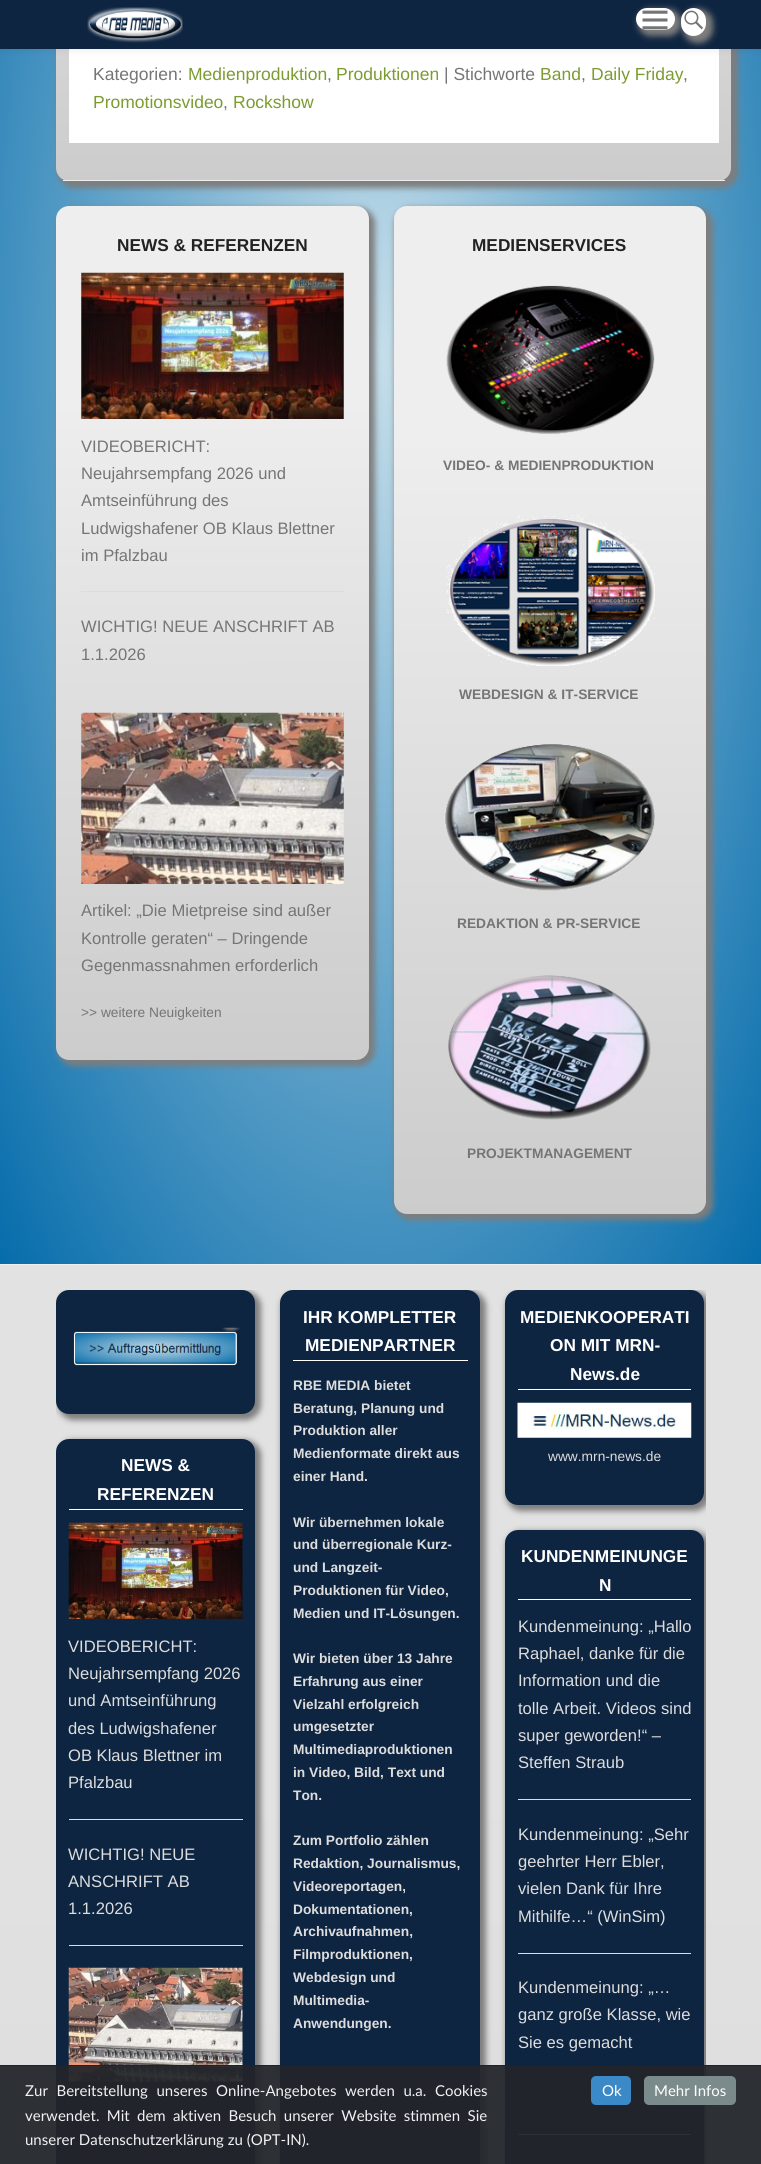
#include <cairo.h>
#include <math.h>
#include <stddef.h>

typedef struct { const char *family; double size; int italic, bold; unsigned color; } style_t;
static cairo_t *ctx;

static void ink(unsigned color) {
    cairo_set_source_rgb(ctx, (color >> 16) / 255.0, (color >> 8 & 255) / 255.0, (color & 255) / 255.0);
}

static void write(double x, double y, const char *s, const style_t *st) {
    cairo_select_font_face(ctx, st->family, st->italic ? CAIRO_FONT_SLANT_ITALIC : CAIRO_FONT_SLANT_NORMAL,
        st->bold ? CAIRO_FONT_WEIGHT_BOLD : CAIRO_FONT_WEIGHT_NORMAL);
    cairo_set_font_size(ctx, st->size);
    ink(st->color);
    cairo_move_to(ctx, x, y);
    cairo_show_text(ctx, s);
}

static void write_spaced(double x, double y, const char *s, double letter, double word) {
    cairo_move_to(ctx, x, y);
    while (*s) {
        char ch[5] = {0};
        int n = 0;
        do ch[n++] = *s++; while ((*s & 0xC0) == 0x80);
        cairo_show_text(ctx, ch);
        cairo_rel_move_to(ctx, letter + word * (*ch == ' '), 0);
    }
}

static void block(double x, double y, double w, double h, unsigned color) {
    ink(color);
    cairo_rectangle(ctx, x, y, w, h);
    cairo_fill(ctx);
}

static void round_path(double x, double y, double w, double h, double r) {
    cairo_new_sub_path(ctx);
    cairo_arc(ctx, x + w - r, y + h - r, r, 0, M_PI / 2);
    cairo_arc(ctx, x + r, y + h - r, r, M_PI / 2, M_PI);
    cairo_arc(ctx, x + r, y + r, r, M_PI, 1.5 * M_PI);
    cairo_arc(ctx, x + w - r, y + r, r, 1.5 * M_PI, 2 * M_PI);
    cairo_close_path(ctx);
}

static void blur_box(double x, double y, double w, double h, double r, double blur, double alpha) {
    cairo_push_group_with_content(ctx, CAIRO_CONTENT_ALPHA);
    cairo_set_operator(ctx, CAIRO_OPERATOR_SOURCE);
    for (int i = 15; i >= -15 && fmin(w, h) + blur * i / 3 > 0; i -= 2) {
        double e = blur * i / 6;
        cairo_set_source_rgba(ctx, 0, 0, 0, alpha * erfc((i - 1) / 8.5) / 2);
        round_path(x - e, y - e, w + 2 * e, h + 2 * e, fmax(0, fmin(r + e + blur * .6, fmin(w, h) / 2 + e)));
        cairo_fill(ctx);
    }
    cairo_pattern_t *soft = cairo_pop_group(ctx);
    cairo_mask(ctx, soft);
    cairo_pattern_destroy(soft);
}

static void paste(const char *path, double x, double y, double w, double h) {
    cairo_surface_t *image = cairo_image_surface_create_from_png(path);
    cairo_save(ctx);
    cairo_set_source_surface(ctx, image, x, y);
    cairo_rectangle(ctx, x, y, w, h);
    cairo_fill(ctx);
    cairo_restore(ctx);
    cairo_surface_destroy(image);
}

static const style_t s1 = {"Liberation Sans", 17.5, 0, 0, 0x757575};
static const style_t s2 = {"Liberation Sans", 17.5, 0, 0, 0x7c9b30};
static const style_t s3 = {"Liberation Sans", 17.25, 0, 1, 0x222222};
static const style_t s4 = {"Liberation Sans", 16.6, 0, 0, 0x757575};
static const style_t s5 = {"Liberation Sans", 13.75, 0, 0, 0x757575};
static const style_t s6 = {"Liberation Sans", 13.75, 0, 1, 0x757575};
static const style_t s7 = {"Liberation Sans", 17.25, 0, 1, 0xffffff};
static const style_t s8 = {"Liberation Sans", 16.6, 0, 0, 0xdddddd};
static const style_t s9 = {"Liberation Sans", 13.75, 0, 1, 0xdddddd};
static const style_t s10 = {"Liberation Sans", 13.75, 0, 0, 0xdddddd};
static const style_t s11 = {"Lato", 15, 0, 0, 0xf1f1f3};
static const style_t s12 = {"Lato", 15, 0, 0, 0xffffff};

int main(void) {
    cairo_surface_t *surface = cairo_image_surface_create(CAIRO_FORMAT_RGB24, 761, 2164);
    ctx = cairo_create(surface);
    cairo_font_options_t *options = cairo_font_options_create();
    cairo_font_options_set_hint_metrics(options, CAIRO_HINT_METRICS_OFF);
    cairo_font_options_set_hint_style(options, CAIRO_HINT_STYLE_NONE);
    cairo_set_font_options(ctx, options);
    cairo_set_miter_limit(ctx, 4);
    cairo_pattern_t *gradient;
    ink(0xffffff);
    cairo_paint(ctx);
    gradient = cairo_pattern_create_radial(0, 0, 0, 0, 0, 1);
    cairo_pattern_set_matrix(gradient, &(cairo_matrix_t){1.0 / 538, 0, 0, 1.0 / 1287, -1.0 * 381 / 538, -1.0 * 354 / 1287});
    cairo_pattern_add_color_stop_rgba(gradient, 0, 0.773, 0.871, 0.918, 1);
    cairo_pattern_add_color_stop_rgba(gradient, 0.31, 0.541, 0.733, 0.843, 1);
    cairo_pattern_add_color_stop_rgba(gradient, 1, 0.024, 0.427, 0.671, 1);
    cairo_set_source(ctx, gradient);
    cairo_pattern_destroy(gradient);
    cairo_rectangle(ctx, 0, 49, 761, 1215);
    cairo_fill(ctx);
    ink(0x7d7d7d);
    blur_box(58, -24, 680, 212, 15, 3, 1);
    cairo_save(ctx);
    round_path(56, -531, 675, 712, 13);
    cairo_clip(ctx);
    gradient = cairo_pattern_create_linear(394, -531, 394, 180);
    cairo_pattern_add_color_stop_rgba(gradient, 0.23, 0.933, 0.933, 0.933, 1);
    cairo_pattern_add_color_stop_rgba(gradient, 1, 0.8, 0.8, 0.8, 1);
    cairo_set_source(ctx, gradient);
    cairo_pattern_destroy(gradient);
    cairo_new_path(ctx);
    cairo_move_to(ctx, 69, -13);
    cairo_line_to(ctx, 718, -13);
    cairo_curve_to(ctx, 725, -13, 731, -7, 731, 0);
    cairo_line_to(ctx, 731, 180);
    cairo_line_to(ctx, 56, 180);
    cairo_line_to(ctx, 56, 0);
    cairo_curve_to(ctx, 56, -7, 62, -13, 69, -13);
    cairo_close_path(ctx);
    cairo_fill(ctx);
    cairo_restore(ctx);
    block(69, 49, 650, 94, 0xffffff);
    ink(0x000000);
    blur_box(0, 0, 761, 49, 0, 4.5, 0.1);
    block(0, 0, 761, 49, 0x0e2541);
    paste("pic1.png", 87, 7, 96, 36);
    ink(0x7d7d7d);
    blur_box(638, 9, 43, 27, 13.5, 3, 1);
    ink(0xffffff);
    round_path(636, 8, 39, 22, 11);
    cairo_fill(ctx);
    paste("pic2.png", 642, 10, 26, 20);
    ink(0x7d7d7d);
    blur_box(683, 9, 30, 34, 15, 3, 1);
    ink(0xffffff);
    round_path(681, 8, 25, 28, 12.5);
    cairo_fill(ctx);
    paste("pic3.png", 684, 10, 19, 20);
    block(63, 180, 662, 1, 0xeeeeee);
    write(93, 80, "Kategorien:", &s1);
    write(188, 80, "Medienproduktion", &s2);
    write(327, 80, ",", &s1);
    write(336, 80, "Produktionen", &s2);
    write(444, 80, "| Stichworte", &s1);
    write(540, 80, "Band", &s2);
    write(581, 80, ",", &s1);
    write(591, 80, "Daily Friday", &s2);
    write(683, 80, ",", &s1);
    write(93, 108, "Promotionsvideo", &s2);
    write(223, 108, ",", &s1);
    write(233, 108, "Rockshow", &s2);
    ink(0x7d7d7d);
    blur_box(58, 208, 317, 858, 15, 3, 1);
    gradient = cairo_pattern_create_linear(212, 206, 213, 1060);
    cairo_pattern_add_color_stop_rgba(gradient, 0.23, 0.933, 0.933, 0.933, 1);
    cairo_pattern_add_color_stop_rgba(gradient, 1, 0.8, 0.8, 0.8, 1);
    cairo_set_source(ctx, gradient);
    cairo_pattern_destroy(gradient);
    round_path(56, 206, 313, 854, 13);
    cairo_fill(ctx);
    write(117, 251, "NEWS & REFERENZEN", &s3);
    block(81, 591, 263, 1, 0xdddddd);
    paste("pic4.png", 81, 272, 263, 147);
    write(81, 452, "VIDEOBERICHT:", &s4);
    write(81, 479, "Neujahrsempfang 2026 und", &s4);
    write(81, 506, "Amtseinführung des", &s4);
    write(81, 534, "Ludwigshafener OB Klaus Blettner", &s4);
    write(81, 561, "im Pfalzbau", &s4);
    write(81, 632, "WICHTIG! NEUE ANSCHRIFT AB", &s4);
    write(81, 660, "1.1.2026", &s4);
    paste("pic5.png", 81, 712, 263, 172);
    write(81, 916, "Artikel: „Die Mietpreise sind außer", &s4);
    write(81, 944, "Kontrolle geraten“ – Dringende", &s4);
    write(81, 971, "Gegenmassnahmen erforderlich", &s4);
    write(81, 1017, ">> weitere Neuigkeiten", &s5);
    ink(0x7d7d7d);
    blur_box(395, 208, 318, 1012, 15, 3, 1);
    gradient = cairo_pattern_create_linear(550, 206, 550, 1214);
    cairo_pattern_add_color_stop_rgba(gradient, 0.23, 0.933, 0.933, 0.933, 1);
    cairo_pattern_add_color_stop_rgba(gradient, 1, 0.8, 0.8, 0.8, 1);
    cairo_set_source(ctx, gradient);
    cairo_pattern_destroy(gradient);
    round_path(394, 206, 312, 1008, 13);
    cairo_fill(ctx);
    write(472, 251, "MEDIENSERVICES", &s3);
    paste("pic6.png", 446, 285, 209, 149);
    write(443, 470, "VIDEO- & MEDIENPRODUKTION", &s6);
    paste("pic7.png", 446, 515, 209, 151);
    write(459, 699, "WEBDESIGN & IT-SERVICE", &s6);
    paste("pic8.png", 444, 744, 211, 147);
    write(457, 928, "REDAKTION & PR-SERVICE", &s6);
    paste("pic9.png", 448, 975, 203, 145);
    write(467, 1158, "PROJEKTMANAGEMENT", &s6);
    block(0, 1264, 761, 1, 0xeeeeee);
    gradient = cairo_pattern_create_linear(381, 1265, 381, 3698);
    cairo_pattern_add_color_stop_rgba(gradient, 0.21, 0.886, 0.886, 0.886, 1);
    cairo_pattern_add_color_stop_rgba(gradient, 0.5, 0.859, 0.859, 0.859, 1);
    cairo_pattern_add_color_stop_rgba(gradient, 1, 0.82, 0.82, 0.82, 1);
    cairo_pattern_add_color_stop_rgba(gradient, 1, 0.996, 0.996, 0.996, 1);
    cairo_set_source(ctx, gradient);
    cairo_pattern_destroy(gradient);
    cairo_rectangle(ctx, 0, 1265, 761, 899);
    cairo_fill(ctx);
    cairo_save(ctx);
    cairo_rectangle(ctx, 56, 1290, 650, 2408);
    cairo_clip(ctx);
    ink(0x7d7d7d);
    blur_box(58, 1291, 203, 129, 15, 3, 1);
    cairo_restore(ctx);
    ink(0x0e2541);
    round_path(56, 1290, 199, 124, 13);
    cairo_fill(ctx);
    paste("pic10.png", 73, 1327, 167, 39);
    cairo_save(ctx);
    cairo_rectangle(ctx, 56, 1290, 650, 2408);
    cairo_clip(ctx);
    ink(0x7d7d7d);
    blur_box(58, 1440, 203, 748, 15, 3, 1);
    cairo_restore(ctx);
    round_path(56, 1439, 199, 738, 13);
    cairo_fill(ctx);
    block(69, 1509, 174, 1, 0xffffff);
    write(121, 1471, "NEWS &", &s7);
    write(97, 1500, "REFERENZEN", &s7);
    block(69, 1819, 174, 1, 0xdddddd);
    paste("pic11.png", 68, 1522, 175, 97);
    write(68, 1652, "VIDEOBERICHT:", &s8);
    write(68, 1679, "Neujahrsempfang 2026", &s8);
    write(68, 1706, "und Amtseinführung", &s8);
    write(68, 1734, "des Ludwigshafener", &s8);
    write(68, 1761, "OB Klaus Blettner im", &s8);
    write(68, 1788, "Pfalzbau", &s8);
    block(69, 1945, 174, 1, 0xdddddd);
    write(68, 1860, "WICHTIG! NEUE", &s8);
    write(68, 1887, "ANSCHRIFT AB", &s8);
    write(68, 1914, "1.1.2026", &s8);
    paste("pic12.png", 68, 1967, 175, 115);
    cairo_save(ctx);
    cairo_rectangle(ctx, 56, 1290, 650, 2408);
    cairo_clip(ctx);
    ink(0x7d7d7d);
    blur_box(281, 1291, 205, 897, 15, 3, 1);
    cairo_restore(ctx);
    ink(0x0e2541);
    round_path(280, 1290, 200, 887, 13);
    cairo_fill(ctx);
    block(293, 1360, 175, 1, 0xffffff);
    write(303, 1323, "IHR KOMPLETTER", &s7);
    write(305, 1351, "MEDIENPARTNER", &s7);
    write(293, 1390, "RBE MEDIA bietet", &s9);
    write(293, 1413, "Beratung, Planung und", &s9);
    write(293, 1435, "Produktion aller", &s9);
    write(293, 1458, "Medienformate direkt aus", &s9);
    write(293, 1481, "einer Hand.", &s9);
    write(293, 1527, "Wir übernehmen lokale", &s9);
    write(293, 1549, "und überregionale Kurz-", &s9);
    write(293, 1572, "und Langzeit-", &s9);
    write(293, 1595, "Produktionen für Video,", &s9);
    write(293, 1618, "Medien und IT-Lösungen.", &s9);
    write(293, 1663, "Wir bieten über 13 Jahre", &s9);
    write(293, 1686, "Erfahrung aus einer", &s9);
    write(293, 1709, "Vielzahl erfolgreich", &s9);
    write(293, 1731, "umgesetzter", &s9);
    write(293, 1754, "Multimediaproduktionen", &s9);
    write(293, 1777, "in Video, Bild, Text und", &s9);
    write(293, 1800, "Ton.", &s9);
    write(293, 1845, "Zum Portfolio zählen", &s9);
    write(293, 1868, "Redaktion, Journalismus,", &s9);
    write(293, 1891, "Videoreportagen,", &s9);
    write(293, 1914, "Dokumentationen,", &s9);
    write(293, 1936, "Archivaufnahmen,", &s9);
    write(293, 1959, "Filmproduktionen,", &s9);
    write(293, 1982, "Webdesign und", &s9);
    write(293, 2005, "Multimedia-", &s9);
    write(293, 2028, "Anwendungen.", &s9);
    cairo_save(ctx);
    cairo_rectangle(ctx, 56, 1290, 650, 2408);
    cairo_clip(ctx);
    ink(0x7d7d7d);
    blur_box(506, 1291, 204, 220, 15, 3, 1);
    cairo_restore(ctx);
    ink(0x0e2541);
    round_path(505, 1290, 199, 215, 13);
    cairo_fill(ctx);
    block(518, 1389, 173, 1, 0xffffff);
    write(520, 1323, "MEDIENKOOPERATI", &s7);
    write(550, 1351, "ON MIT MRN-", &s7);
    write(570, 1380, "News.de", &s7);
    paste("pic13.png", 517, 1402, 175, 36);
    write(548, 1461, "www.mrn-news.de", &s10);
    cairo_save(ctx);
    cairo_rectangle(ctx, 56, 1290, 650, 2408);
    cairo_clip(ctx);
    ink(0x7d7d7d);
    blur_box(506, 1531, 204, 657, 15, 3, 1);
    cairo_restore(ctx);
    ink(0x0e2541);
    round_path(505, 1530, 199, 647, 13);
    cairo_fill(ctx);
    block(518, 1599, 173, 1, 0xffffff);
    write(521, 1562, "KUNDENMEINUNGE", &s7);
    write(599, 1591, "N", &s7);
    block(518, 1799, 173, 1, 0xdddddd);
    write(518, 1632, "Kundenmeinung: „Hallo", &s8);
    write(518, 1659, "Raphael, danke für die", &s8);
    write(518, 1686, "Information und die", &s8);
    write(518, 1714, "tolle Arbeit. Videos sind", &s8);
    write(518, 1741, "super geworden!“ –", &s8);
    write(518, 1768, "Steffen Straub", &s8);
    block(518, 1953, 173, 1, 0xdddddd);
    write(518, 1840, "Kundenmeinung: „Sehr", &s8);
    write(518, 1867, "geehrter Herr Ebler,", &s8);
    write(518, 1894, "vielen Dank für Ihre", &s8);
    write(518, 1922, "Mithilfe…“ (WinSim)", &s8);
    block(518, 2134, 173, 1, 0xdddddd);
    write(518, 1993, "Kundenmeinung: „…", &s8);
    write(518, 2020, "ganz große Klasse, wie", &s8);
    write(518, 2048, "Sie es gemacht", &s8);
    cairo_set_source_rgba(ctx, 0.196, 0.227, 0.271, 0.7);
    cairo_rectangle(ctx, 0, 2066, 761, 98);
    cairo_fill(ctx);
    block(0, 2065, 761, 1, 0x202226);
    cairo_set_source_rgba(ctx, 0.125, 0.133, 0.149, 0.8);
    cairo_rectangle(ctx, 0, 2066, 761, 98);
    cairo_fill(ctx);
    cairo_select_font_face(ctx, "Lato", CAIRO_FONT_SLANT_NORMAL, CAIRO_FONT_WEIGHT_NORMAL);
    cairo_set_font_size(ctx, 15);
    ink(0xf1f1f3);
    write_spaced(25, 2096, "Zur Bereitstellung unseres Online-Angebotes werden u.a. Cookies", 0, 4.75);
    write_spaced(25, 2121, "verwendet. Mit dem aktiven Besuch unserer Website stimmen Sie", 0, 3.5);
    write(25, 2145, "unserer Datenschutzerklärung zu (OPT-IN).", &s11);
    ink(0x3b89c7);
    round_path(591, 2076, 40, 29, 5);
    cairo_fill(ctx);
    write(602, 2096, "Ok", &s12);
    ink(0x7b8a8b);
    round_path(644, 2076, 92, 29, 5);
    cairo_fill(ctx);
    write(654, 2096, "Mehr Infos", &s12);
    cairo_surface_write_to_png(surface, "screenshot.png");
    cairo_font_options_destroy(options);
    cairo_destroy(ctx);
    cairo_surface_destroy(surface);
    return 0;
}
